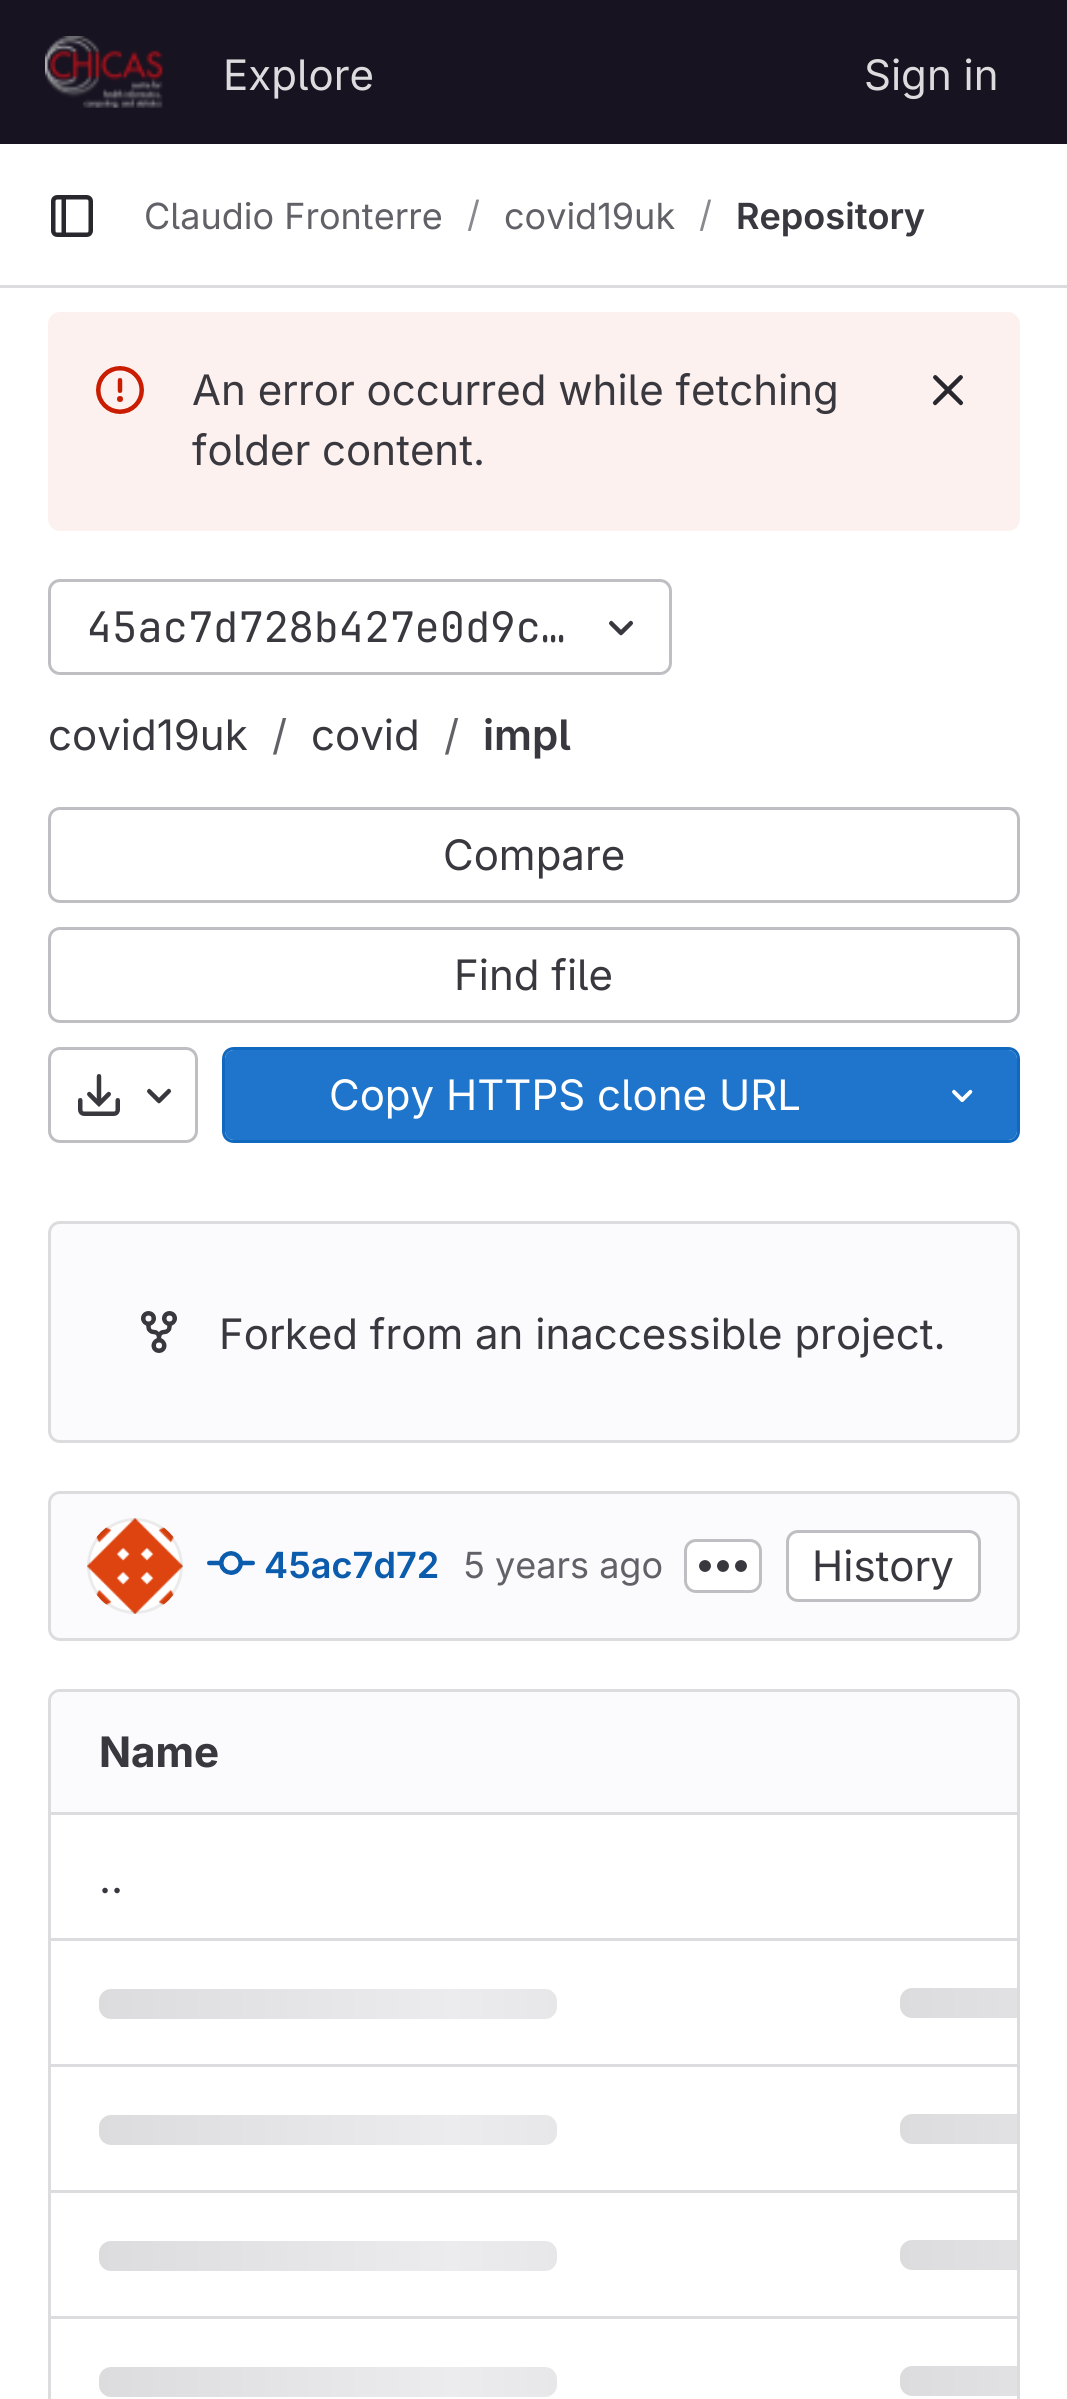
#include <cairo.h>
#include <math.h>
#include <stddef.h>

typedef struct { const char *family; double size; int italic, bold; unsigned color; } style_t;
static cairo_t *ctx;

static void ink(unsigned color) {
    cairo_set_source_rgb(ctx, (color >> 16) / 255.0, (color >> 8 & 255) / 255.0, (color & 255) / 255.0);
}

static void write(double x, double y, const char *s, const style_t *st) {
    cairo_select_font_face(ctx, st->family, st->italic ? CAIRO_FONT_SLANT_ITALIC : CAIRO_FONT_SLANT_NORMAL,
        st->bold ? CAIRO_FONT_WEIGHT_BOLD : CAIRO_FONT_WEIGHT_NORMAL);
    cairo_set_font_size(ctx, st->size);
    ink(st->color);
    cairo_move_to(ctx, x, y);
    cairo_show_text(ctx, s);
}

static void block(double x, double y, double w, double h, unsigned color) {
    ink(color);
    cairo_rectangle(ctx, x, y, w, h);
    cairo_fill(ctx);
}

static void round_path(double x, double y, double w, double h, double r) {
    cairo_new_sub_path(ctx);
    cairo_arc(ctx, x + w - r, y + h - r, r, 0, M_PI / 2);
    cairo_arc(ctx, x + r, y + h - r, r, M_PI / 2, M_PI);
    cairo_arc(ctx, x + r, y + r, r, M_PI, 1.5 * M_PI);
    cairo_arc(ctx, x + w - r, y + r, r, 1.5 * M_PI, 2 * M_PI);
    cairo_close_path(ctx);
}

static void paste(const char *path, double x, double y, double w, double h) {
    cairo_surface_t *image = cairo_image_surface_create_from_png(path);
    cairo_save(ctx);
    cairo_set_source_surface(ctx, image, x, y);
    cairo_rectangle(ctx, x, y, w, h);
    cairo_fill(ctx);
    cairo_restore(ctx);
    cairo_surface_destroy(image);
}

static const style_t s1 = {"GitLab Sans", 42, 0, 0, 0xdcdcde};
static const style_t s2 = {"GitLab Sans", 36, 0, 0, 0x626168};
static const style_t s3 = {"GitLab Sans", 36, 0, 0, 0x89888d};
static const style_t s4 = {"GitLab Sans SemiBold", 36, 0, 0, 0x3a383f};
static const style_t s5 = {"GitLab Sans", 42, 0, 0, 0x3a383f};
static const style_t s6 = {"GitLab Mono", 42, 0, 0, 0x3a383f};
static const style_t s7 = {"GitLab Sans", 42, 0, 0, 0x626168};
static const style_t s8 = {"GitLab Sans SemiBold", 42, 0, 0, 0x3a383f};
static const style_t s9 = {"GitLab Sans", 42, 0, 0, 0xffffff};
static const style_t s10 = {"GitLab Sans SemiBold", 36, 0, 0, 0x0b5cad};
static const style_t s11 = {"GitLab Sans", 42, 0, 1, 0x3a383f};

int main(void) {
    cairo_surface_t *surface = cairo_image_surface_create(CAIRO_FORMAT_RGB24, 1067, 2399);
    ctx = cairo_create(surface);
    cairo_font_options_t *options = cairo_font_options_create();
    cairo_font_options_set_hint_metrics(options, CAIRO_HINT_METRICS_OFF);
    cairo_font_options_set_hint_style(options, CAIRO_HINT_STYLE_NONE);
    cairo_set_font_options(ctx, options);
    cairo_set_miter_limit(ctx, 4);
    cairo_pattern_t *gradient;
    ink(0xffffff);
    cairo_paint(ctx);
    block(0, 0, 1067, 144, 0x171321);
    paste("pic1.png", 45, 36, 118, 72);
    write(223, 90, "Explore", &s1);
    write(864, 90, "Sign in", &s1);
    block(0, 285, 1067, 3, 0xdcdcde);
    paste("pic2.png", 51, 195, 42, 42);
    write(144, 229, "Claudio Fronterre", &s2);
    write(467, 227, "/", &s3);
    write(504, 229, "covid19uk", &s2);
    write(699, 227, "/", &s3);
    write(736, 229, "Repository", &s4);
    ink(0xfcf1ef);
    round_path(48, 312, 972, 219, 12);
    cairo_fill(ctx);
    paste("pic3.png", 96, 366, 48, 48);
    write(192, 405, "An error occurred while fetching", &s5);
    write(192, 465, "folder content.", &s5);
    paste("pic4.png", 932, 375, 32, 31);
    round_path(49.5, 580.5, 621, 93, 10.5);
    ink(0xbfbfc3);
    cairo_set_line_width(ctx, 3);
    cairo_stroke(ctx);
    write(87, 642, "45ac7d728b427e0d9c…", &s6);
    paste("pic5.png", 608, 620, 26, 16);
    write(48, 750, "covid19uk", &s5);
    write(272, 750, "/", &s7);
    write(311, 750, "covid", &s5);
    write(444, 750, "/", &s7);
    write(483, 750, "impl", &s8);
    round_path(49.5, 808.5, 969, 93, 10.5);
    ink(0xbfbfc3);
    cairo_stroke(ctx);
    write(443, 870, "Compare", &s5);
    round_path(49.5, 928.5, 969, 93, 10.5);
    ink(0xbfbfc3);
    cairo_stroke(ctx);
    write(454, 990, "Find file", &s5);
    round_path(49.5, 1048.5, 147, 93, 10.5);
    ink(0xbfbfc3);
    cairo_stroke(ctx);
    paste("pic6.png", 78, 1074, 42, 42);
    paste("pic5.png", 146, 1088, 26, 16);
    ink(0x1f75cb);
    cairo_new_path(ctx);
    cairo_move_to(ctx, 234, 1050);
    cairo_line_to(ctx, 906, 1050);
    cairo_line_to(ctx, 906, 1140);
    cairo_line_to(ctx, 234, 1140);
    cairo_curve_to(ctx, 229, 1140, 225, 1136, 225, 1131);
    cairo_line_to(ctx, 225, 1059);
    cairo_curve_to(ctx, 225, 1054, 229, 1050, 234, 1050);
    cairo_close_path(ctx);
    cairo_fill(ctx);
    ink(0x1068bf);
    cairo_set_fill_rule(ctx, CAIRO_FILL_RULE_EVEN_ODD);
    cairo_new_path(ctx);
    cairo_move_to(ctx, 234, 1047);
    cairo_line_to(ctx, 906, 1047);
    cairo_line_to(ctx, 906, 1143);
    cairo_line_to(ctx, 234, 1143);
    cairo_curve_to(ctx, 227, 1143, 222, 1138, 222, 1131);
    cairo_line_to(ctx, 222, 1059);
    cairo_curve_to(ctx, 222, 1052, 227, 1047, 234, 1047);
    cairo_close_path(ctx);
    cairo_move_to(ctx, 234, 1050);
    cairo_line_to(ctx, 906, 1050);
    cairo_line_to(ctx, 906, 1140);
    cairo_line_to(ctx, 234, 1140);
    cairo_curve_to(ctx, 229, 1140, 225, 1136, 225, 1131);
    cairo_line_to(ctx, 225, 1059);
    cairo_curve_to(ctx, 225, 1054, 229, 1050, 234, 1050);
    cairo_close_path(ctx);
    cairo_fill(ctx);
    write(329, 1110, "Copy HTTPS clone URL", &s9);
    ink(0x1f75cb);
    cairo_new_path(ctx);
    cairo_move_to(ctx, 906, 1050);
    cairo_line_to(ctx, 1008, 1050);
    cairo_curve_to(ctx, 1013, 1050, 1017, 1054, 1017, 1059);
    cairo_line_to(ctx, 1017, 1131);
    cairo_curve_to(ctx, 1017, 1136, 1013, 1140, 1008, 1140);
    cairo_line_to(ctx, 906, 1140);
    cairo_close_path(ctx);
    cairo_fill(ctx);
    ink(0x1068bf);
    cairo_new_path(ctx);
    cairo_move_to(ctx, 906, 1047);
    cairo_line_to(ctx, 1008, 1047);
    cairo_curve_to(ctx, 1015, 1047, 1020, 1052, 1020, 1059);
    cairo_line_to(ctx, 1020, 1131);
    cairo_curve_to(ctx, 1020, 1138, 1015, 1143, 1008, 1143);
    cairo_line_to(ctx, 906, 1143);
    cairo_close_path(ctx);
    cairo_move_to(ctx, 906, 1050);
    cairo_line_to(ctx, 1008, 1050);
    cairo_curve_to(ctx, 1013, 1050, 1017, 1054, 1017, 1059);
    cairo_line_to(ctx, 1017, 1131);
    cairo_curve_to(ctx, 1017, 1136, 1013, 1140, 1008, 1140);
    cairo_line_to(ctx, 906, 1140);
    cairo_close_path(ctx);
    cairo_fill(ctx);
    paste("pic7.png", 952, 1089, 21, 13);
    ink(0xfbfafd);
    round_path(49.5, 1222.5, 969, 219, 10.5);
    cairo_fill_preserve(ctx);
    ink(0xdcdcde);
    cairo_stroke(ctx);
    paste("pic8.png", 141, 1311, 36, 42);
    write(219, 1349, "Forked from an inaccessible project.", &s5);
    ink(0xfbfafd);
    round_path(49.5, 1492.5, 969, 147, 10.5);
    cairo_fill_preserve(ctx);
    ink(0xdcdcde);
    cairo_stroke(ctx);
    paste("pic9.png", 87, 1518, 96, 96);
    cairo_arc(ctx, 135, 1566, 46.5, 0, 2 * M_PI);
    cairo_set_source_rgba(ctx, 0.02, 0.02, 0.024, 0.08);
    cairo_stroke(ctx);
    paste("pic10.png", 207, 1551, 48, 24);
    write(264, 1578, "45ac7d72", &s10);
    write(463, 1578, "5 years ago", &s2);
    ink(0xffffff);
    round_path(685.5, 1540.5, 75, 51, 10.5);
    cairo_fill_preserve(ctx);
    ink(0xbfbfc3);
    cairo_stroke(ctx);
    paste("pic11.png", 699, 1560, 48, 12);
    ink(0xffffff);
    round_path(787.5, 1531.5, 192, 69, 10.5);
    cairo_fill_preserve(ctx);
    ink(0xbfbfc3);
    cairo_stroke(ctx);
    write(812, 1581, "History", &s5);
    round_path(49.5, 1690.5, 969, 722, 10.5);
    ink(0xdcdcde);
    cairo_stroke(ctx);
    ink(0xfbfafd);
    cairo_new_path(ctx);
    cairo_move_to(ctx, 60, 1692);
    cairo_line_to(ctx, 852, 1692);
    cairo_line_to(ctx, 852, 1815);
    cairo_line_to(ctx, 51, 1815);
    cairo_line_to(ctx, 51, 1701);
    cairo_curve_to(ctx, 51, 1696, 55, 1692, 60, 1692);
    cairo_close_path(ctx);
    cairo_fill(ctx);
    write(99, 1767, "Name", &s11);
    ink(0xfbfafd);
    cairo_new_path(ctx);
    cairo_move_to(ctx, 852, 1692);
    cairo_line_to(ctx, 1008, 1692);
    cairo_curve_to(ctx, 1013, 1692, 1017, 1696, 1017, 1701);
    cairo_line_to(ctx, 1017, 1815);
    cairo_line_to(ctx, 852, 1815);
    cairo_close_path(ctx);
    cairo_fill(ctx);
    block(51, 1938, 966, 3, 0xdcdcde);
    block(51, 1812, 966, 3, 0xdcdcde);
    write(99, 1893, "..", &s5);
    block(51, 2064, 966, 3, 0xdcdcde);
    gradient = cairo_pattern_create_linear(99, 1989, 804, 1989);
    cairo_pattern_add_color_stop_rgba(gradient, 0, 0.863, 0.863, 0.871, 1);
    cairo_pattern_add_color_stop_rgba(gradient, 0.5, 0.925, 0.925, 0.937, 1);
    cairo_pattern_add_color_stop_rgba(gradient, 1, 0.863, 0.863, 0.871, 1);
    cairo_set_source(ctx, gradient);
    cairo_pattern_destroy(gradient);
    round_path(99, 1989, 458, 30, 12);
    cairo_fill(ctx);
    gradient = cairo_pattern_create_linear(900, 1988, 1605, 1988);
    cairo_pattern_add_color_stop_rgba(gradient, 0, 0.863, 0.863, 0.871, 1);
    cairo_pattern_add_color_stop_rgba(gradient, 0.5, 0.925, 0.925, 0.937, 1);
    cairo_pattern_add_color_stop_rgba(gradient, 1, 0.863, 0.863, 0.871, 1);
    cairo_set_source(ctx, gradient);
    cairo_pattern_destroy(gradient);
    cairo_new_path(ctx);
    cairo_move_to(ctx, 912, 1988);
    cairo_line_to(ctx, 1017, 1988);
    cairo_line_to(ctx, 1017, 2018);
    cairo_line_to(ctx, 912, 2018);
    cairo_curve_to(ctx, 905.5, 2018, 900, 2012.5, 900, 2006);
    cairo_line_to(ctx, 900, 2000);
    cairo_curve_to(ctx, 900, 1993.5, 905.5, 1988, 912, 1988);
    cairo_close_path(ctx);
    cairo_fill(ctx);
    block(51, 2190, 966, 3, 0xdcdcde);
    gradient = cairo_pattern_create_linear(99, 2115, 804, 2115);
    cairo_pattern_add_color_stop_rgba(gradient, 0, 0.863, 0.863, 0.871, 1);
    cairo_pattern_add_color_stop_rgba(gradient, 0.5, 0.925, 0.925, 0.937, 1);
    cairo_pattern_add_color_stop_rgba(gradient, 1, 0.863, 0.863, 0.871, 1);
    cairo_set_source(ctx, gradient);
    cairo_pattern_destroy(gradient);
    round_path(99, 2115, 458, 30, 12);
    cairo_fill(ctx);
    gradient = cairo_pattern_create_linear(900, 2114, 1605, 2114);
    cairo_pattern_add_color_stop_rgba(gradient, 0, 0.863, 0.863, 0.871, 1);
    cairo_pattern_add_color_stop_rgba(gradient, 0.5, 0.925, 0.925, 0.937, 1);
    cairo_pattern_add_color_stop_rgba(gradient, 1, 0.863, 0.863, 0.871, 1);
    cairo_set_source(ctx, gradient);
    cairo_pattern_destroy(gradient);
    cairo_new_path(ctx);
    cairo_move_to(ctx, 912, 2114);
    cairo_line_to(ctx, 1017, 2114);
    cairo_line_to(ctx, 1017, 2144);
    cairo_line_to(ctx, 912, 2144);
    cairo_curve_to(ctx, 905.5, 2144, 900, 2138.5, 900, 2132);
    cairo_line_to(ctx, 900, 2126);
    cairo_curve_to(ctx, 900, 2119.5, 905.5, 2114, 912, 2114);
    cairo_close_path(ctx);
    cairo_fill(ctx);
    block(51, 2316, 966, 3, 0xdcdcde);
    gradient = cairo_pattern_create_linear(99, 2241, 804, 2241);
    cairo_pattern_add_color_stop_rgba(gradient, 0, 0.863, 0.863, 0.871, 1);
    cairo_pattern_add_color_stop_rgba(gradient, 0.5, 0.925, 0.925, 0.937, 1);
    cairo_pattern_add_color_stop_rgba(gradient, 1, 0.863, 0.863, 0.871, 1);
    cairo_set_source(ctx, gradient);
    cairo_pattern_destroy(gradient);
    round_path(99, 2241, 458, 30, 12);
    cairo_fill(ctx);
    gradient = cairo_pattern_create_linear(900, 2240, 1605, 2240);
    cairo_pattern_add_color_stop_rgba(gradient, 0, 0.863, 0.863, 0.871, 1);
    cairo_pattern_add_color_stop_rgba(gradient, 0.5, 0.925, 0.925, 0.937, 1);
    cairo_pattern_add_color_stop_rgba(gradient, 1, 0.863, 0.863, 0.871, 1);
    cairo_set_source(ctx, gradient);
    cairo_pattern_destroy(gradient);
    cairo_new_path(ctx);
    cairo_move_to(ctx, 912, 2240);
    cairo_line_to(ctx, 1017, 2240);
    cairo_line_to(ctx, 1017, 2270);
    cairo_line_to(ctx, 912, 2270);
    cairo_curve_to(ctx, 905.5, 2270, 900, 2264.5, 900, 2258);
    cairo_line_to(ctx, 900, 2252);
    cairo_curve_to(ctx, 900, 2245.5, 905.5, 2240, 912, 2240);
    cairo_close_path(ctx);
    cairo_fill(ctx);
    gradient = cairo_pattern_create_linear(99, 2367, 804, 2367);
    cairo_pattern_add_color_stop_rgba(gradient, 0, 0.863, 0.863, 0.871, 1);
    cairo_pattern_add_color_stop_rgba(gradient, 0.5, 0.925, 0.925, 0.937, 1);
    cairo_pattern_add_color_stop_rgba(gradient, 1, 0.863, 0.863, 0.871, 1);
    cairo_set_source(ctx, gradient);
    cairo_pattern_destroy(gradient);
    round_path(99, 2367, 458, 30, 12);
    cairo_fill(ctx);
    gradient = cairo_pattern_create_linear(900, 2366, 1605, 2366);
    cairo_pattern_add_color_stop_rgba(gradient, 0, 0.863, 0.863, 0.871, 1);
    cairo_pattern_add_color_stop_rgba(gradient, 0.5, 0.925, 0.925, 0.937, 1);
    cairo_pattern_add_color_stop_rgba(gradient, 1, 0.863, 0.863, 0.871, 1);
    cairo_set_source(ctx, gradient);
    cairo_pattern_destroy(gradient);
    cairo_new_path(ctx);
    cairo_move_to(ctx, 912, 2366);
    cairo_line_to(ctx, 1017, 2366);
    cairo_line_to(ctx, 1017, 2396);
    cairo_line_to(ctx, 912, 2396);
    cairo_curve_to(ctx, 905.5, 2396, 900, 2390.5, 900, 2384);
    cairo_line_to(ctx, 900, 2378);
    cairo_curve_to(ctx, 900, 2371.5, 905.5, 2366, 912, 2366);
    cairo_close_path(ctx);
    cairo_fill(ctx);
    cairo_surface_write_to_png(surface, "screenshot.png");
    cairo_font_options_destroy(options);
    cairo_destroy(ctx);
    cairo_surface_destroy(surface);
    return 0;
}
